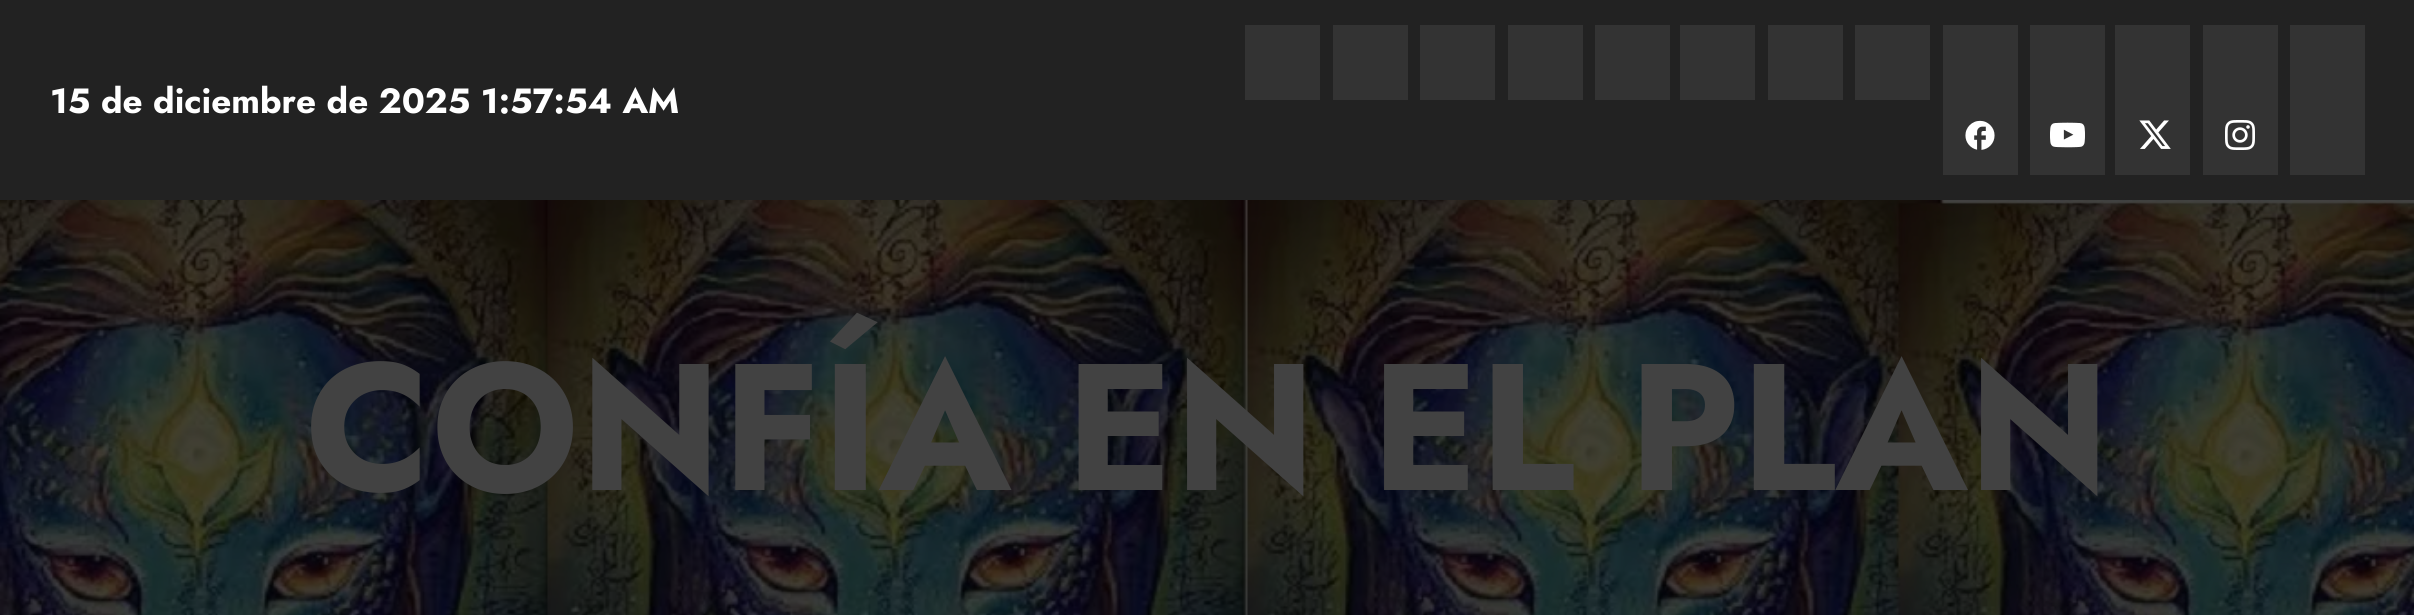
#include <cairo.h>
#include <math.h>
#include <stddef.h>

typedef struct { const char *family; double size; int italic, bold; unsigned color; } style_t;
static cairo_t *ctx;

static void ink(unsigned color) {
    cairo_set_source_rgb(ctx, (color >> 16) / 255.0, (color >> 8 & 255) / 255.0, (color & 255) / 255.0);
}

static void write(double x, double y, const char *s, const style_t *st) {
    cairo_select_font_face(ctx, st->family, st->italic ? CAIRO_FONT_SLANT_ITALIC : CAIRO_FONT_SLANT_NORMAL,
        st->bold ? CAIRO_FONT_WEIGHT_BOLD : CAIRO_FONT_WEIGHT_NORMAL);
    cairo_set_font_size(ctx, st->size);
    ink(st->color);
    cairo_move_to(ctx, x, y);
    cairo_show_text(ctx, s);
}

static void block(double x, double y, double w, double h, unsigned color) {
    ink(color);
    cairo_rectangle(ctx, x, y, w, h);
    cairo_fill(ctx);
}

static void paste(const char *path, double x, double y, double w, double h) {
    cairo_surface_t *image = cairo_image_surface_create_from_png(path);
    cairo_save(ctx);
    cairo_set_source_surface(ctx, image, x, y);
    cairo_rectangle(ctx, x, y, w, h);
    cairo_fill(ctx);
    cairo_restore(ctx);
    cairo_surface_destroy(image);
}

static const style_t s1 = {"Jost", 35, 0, 1, 0xffffff};
static const style_t s2 = {"Jost", 180, 0, 1, 0x424242};

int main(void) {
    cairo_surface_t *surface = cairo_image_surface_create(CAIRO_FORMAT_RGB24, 2414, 615);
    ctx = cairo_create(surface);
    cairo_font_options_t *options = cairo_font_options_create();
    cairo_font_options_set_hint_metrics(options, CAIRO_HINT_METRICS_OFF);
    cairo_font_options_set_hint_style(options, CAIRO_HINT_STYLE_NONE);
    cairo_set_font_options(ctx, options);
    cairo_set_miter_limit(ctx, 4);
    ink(0x222222);
    cairo_paint(ctx);
    write(50, 113, "15 de diciembre de 2025 1:57:54 AM", &s1);
    block(1245, 25, 75, 75, 0x333333);
    block(1333, 25, 75, 75, 0x333333);
    block(1420, 25, 75, 75, 0x333333);
    block(1508, 25, 75, 75, 0x333333);
    block(1595, 25, 75, 75, 0x333333);
    block(1680, 25, 75, 75, 0x333333);
    block(1768, 25, 75, 75, 0x333333);
    block(1855, 25, 75, 75, 0x333333);
    block(1943, 25, 75, 150, 0x333333);
    block(2030, 25, 75, 150, 0x333333);
    block(2115, 25, 75, 150, 0x333333);
    block(2203, 25, 75, 150, 0x333333);
    block(2290, 25, 75, 150, 0x333333);
    paste("pic1.png", 1965, 120, 30, 30);
    paste("pic2.png", 2050, 122, 35, 26);
    paste("pic3.png", 2139, 120, 32, 29);
    paste("pic4.png", 2225, 120, 30, 30);
    paste("pic5.png", 0, 200, 2414, 415);
    write(305, 490, "CONFÍA EN EL PLAN", &s2);
    cairo_surface_write_to_png(surface, "screenshot.png");
    cairo_font_options_destroy(options);
    cairo_destroy(ctx);
    cairo_surface_destroy(surface);
    return 0;
}
